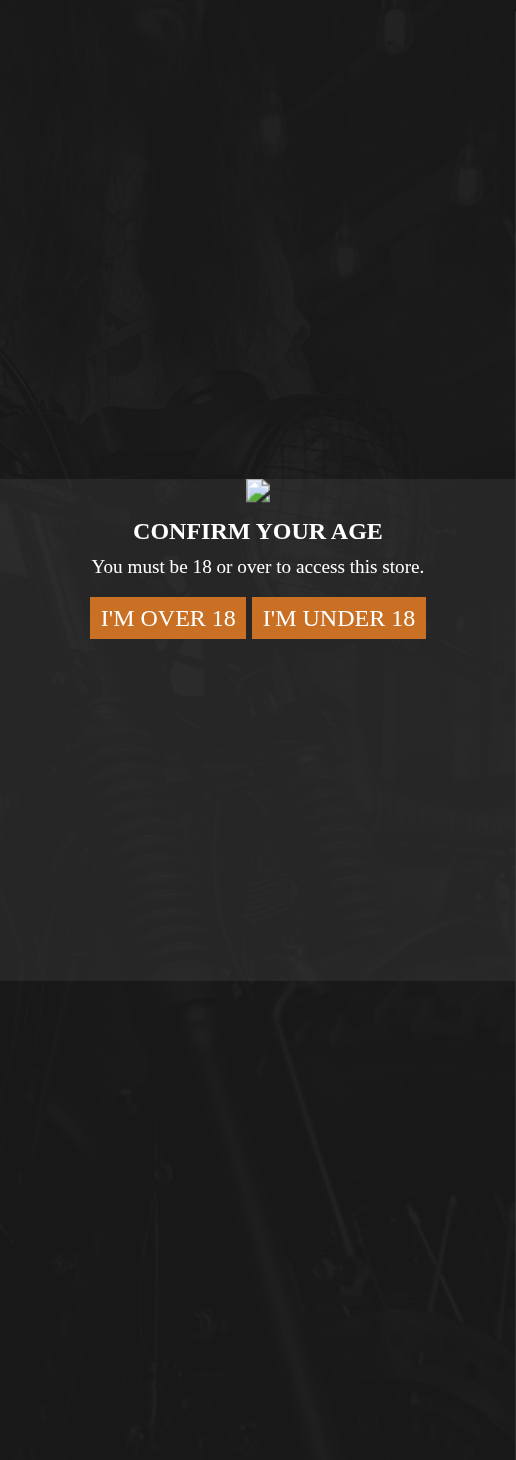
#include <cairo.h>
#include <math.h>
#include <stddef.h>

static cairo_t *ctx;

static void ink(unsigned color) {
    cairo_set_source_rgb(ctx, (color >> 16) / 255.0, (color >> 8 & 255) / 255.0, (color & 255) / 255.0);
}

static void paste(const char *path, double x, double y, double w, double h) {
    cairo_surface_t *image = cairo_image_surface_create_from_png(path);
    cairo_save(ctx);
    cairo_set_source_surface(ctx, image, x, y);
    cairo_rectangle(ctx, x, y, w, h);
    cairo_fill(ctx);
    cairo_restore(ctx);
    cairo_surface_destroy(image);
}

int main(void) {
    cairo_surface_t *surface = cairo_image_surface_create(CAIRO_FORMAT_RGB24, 516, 1460);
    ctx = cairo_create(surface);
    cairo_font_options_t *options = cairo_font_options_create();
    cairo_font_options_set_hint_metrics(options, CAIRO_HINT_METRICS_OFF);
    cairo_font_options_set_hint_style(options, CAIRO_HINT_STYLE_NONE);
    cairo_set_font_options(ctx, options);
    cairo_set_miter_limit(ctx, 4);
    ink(0xffffff);
    cairo_paint(ctx);
    paste("pic3.png", 515, 0, 1, 12);
    paste("pic1.png", 0, 0, 516, 1460);
    paste("pic2.png", 0, 479, 516, 502);
    cairo_surface_write_to_png(surface, "screenshot.png");
    cairo_font_options_destroy(options);
    cairo_destroy(ctx);
    cairo_surface_destroy(surface);
    return 0;
}
